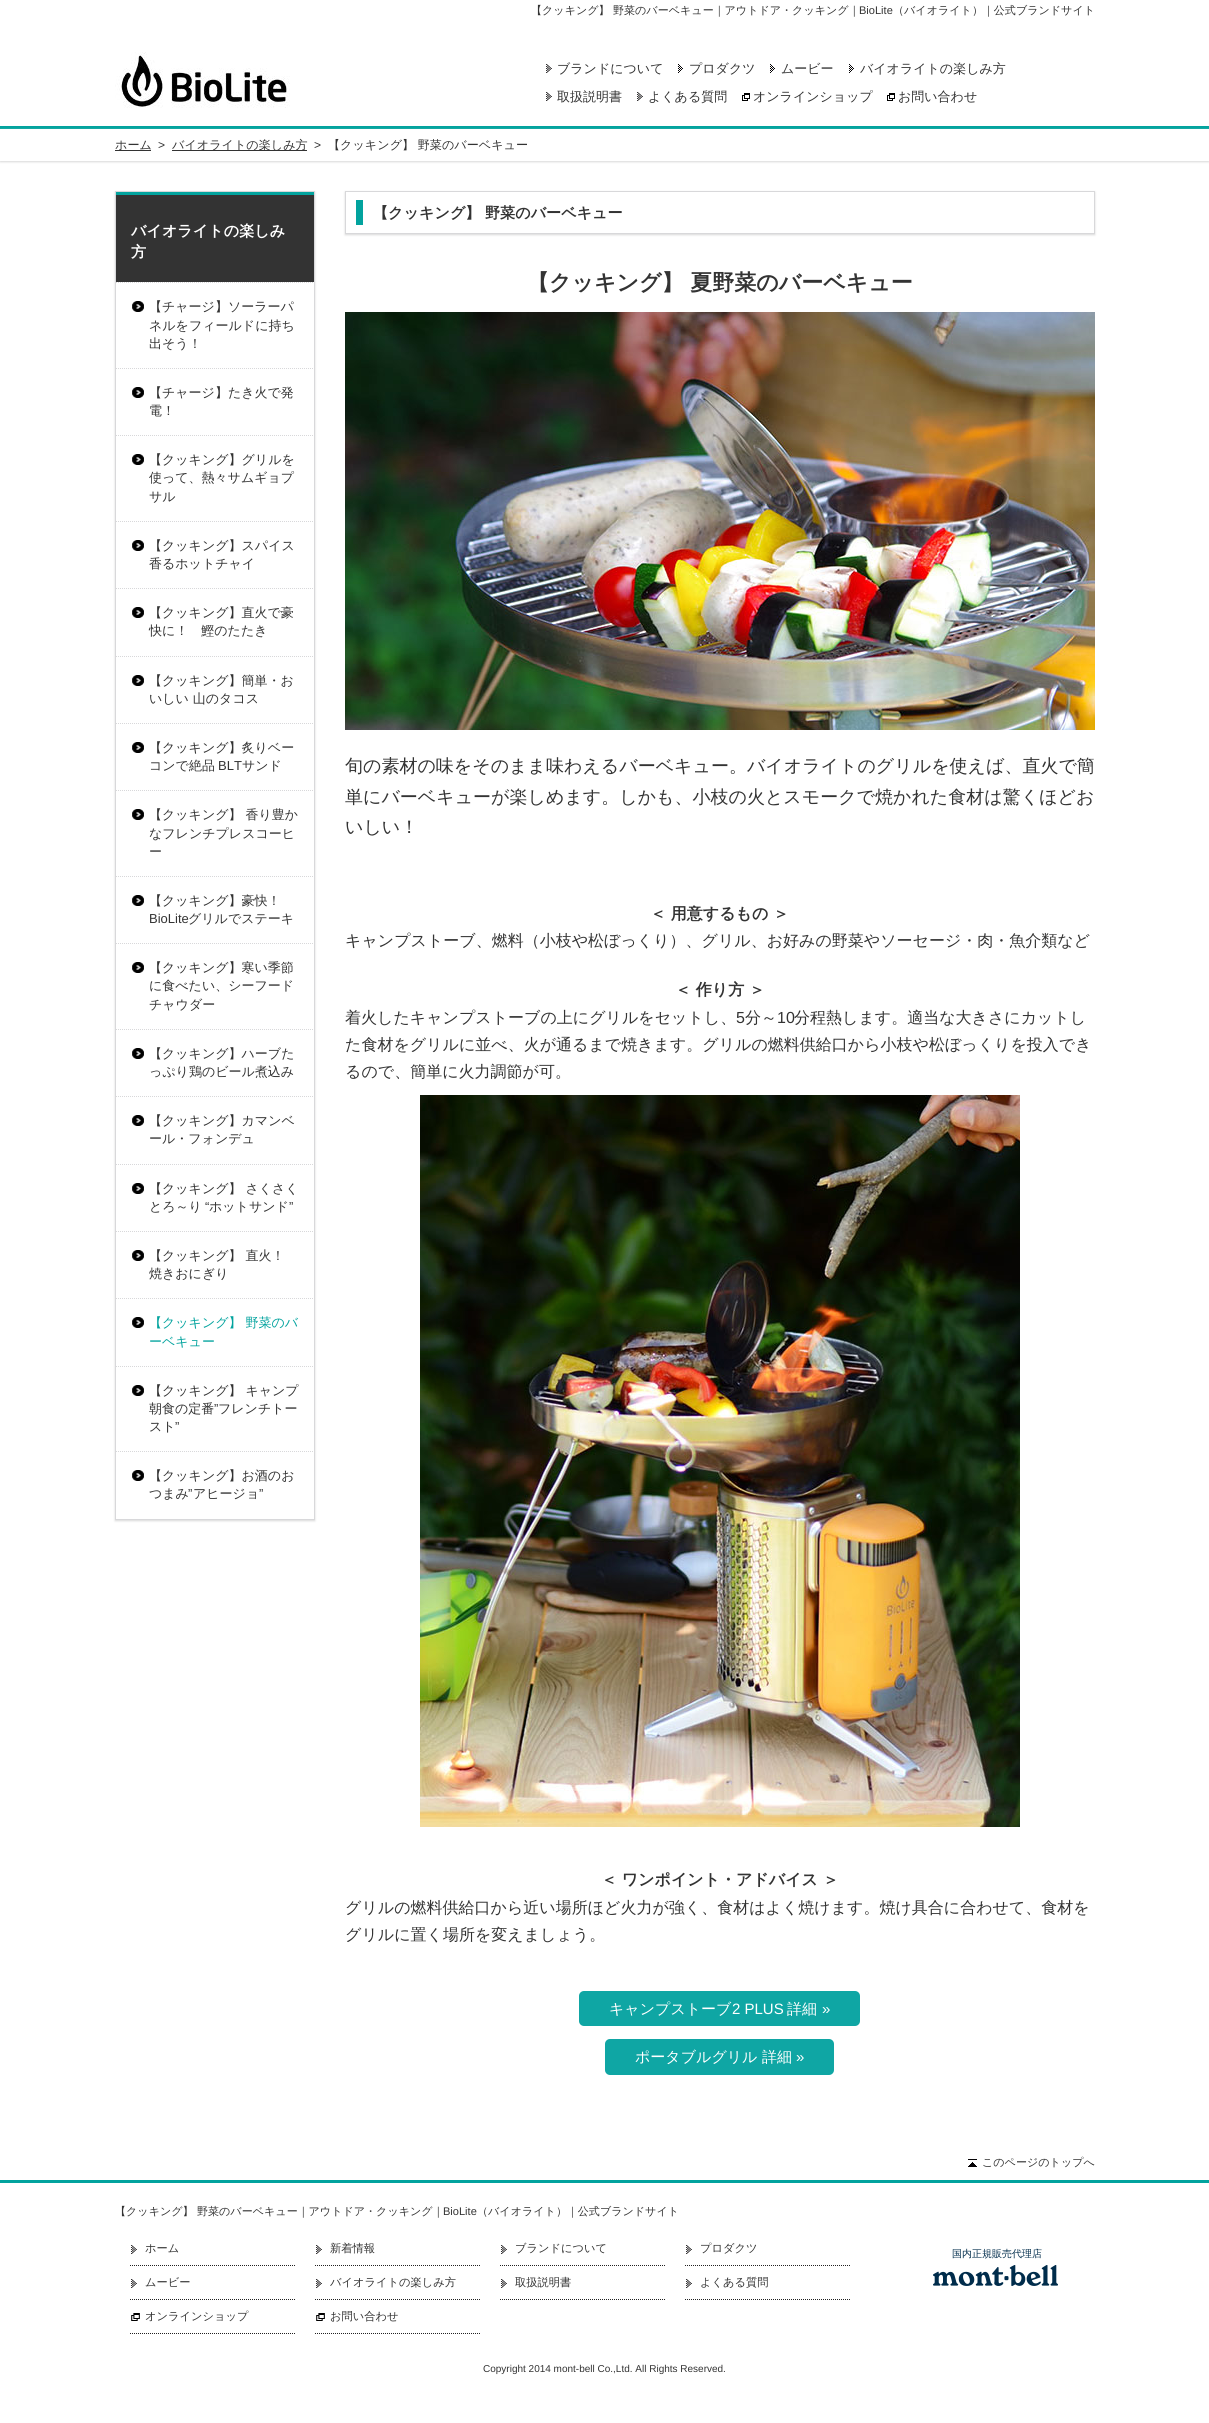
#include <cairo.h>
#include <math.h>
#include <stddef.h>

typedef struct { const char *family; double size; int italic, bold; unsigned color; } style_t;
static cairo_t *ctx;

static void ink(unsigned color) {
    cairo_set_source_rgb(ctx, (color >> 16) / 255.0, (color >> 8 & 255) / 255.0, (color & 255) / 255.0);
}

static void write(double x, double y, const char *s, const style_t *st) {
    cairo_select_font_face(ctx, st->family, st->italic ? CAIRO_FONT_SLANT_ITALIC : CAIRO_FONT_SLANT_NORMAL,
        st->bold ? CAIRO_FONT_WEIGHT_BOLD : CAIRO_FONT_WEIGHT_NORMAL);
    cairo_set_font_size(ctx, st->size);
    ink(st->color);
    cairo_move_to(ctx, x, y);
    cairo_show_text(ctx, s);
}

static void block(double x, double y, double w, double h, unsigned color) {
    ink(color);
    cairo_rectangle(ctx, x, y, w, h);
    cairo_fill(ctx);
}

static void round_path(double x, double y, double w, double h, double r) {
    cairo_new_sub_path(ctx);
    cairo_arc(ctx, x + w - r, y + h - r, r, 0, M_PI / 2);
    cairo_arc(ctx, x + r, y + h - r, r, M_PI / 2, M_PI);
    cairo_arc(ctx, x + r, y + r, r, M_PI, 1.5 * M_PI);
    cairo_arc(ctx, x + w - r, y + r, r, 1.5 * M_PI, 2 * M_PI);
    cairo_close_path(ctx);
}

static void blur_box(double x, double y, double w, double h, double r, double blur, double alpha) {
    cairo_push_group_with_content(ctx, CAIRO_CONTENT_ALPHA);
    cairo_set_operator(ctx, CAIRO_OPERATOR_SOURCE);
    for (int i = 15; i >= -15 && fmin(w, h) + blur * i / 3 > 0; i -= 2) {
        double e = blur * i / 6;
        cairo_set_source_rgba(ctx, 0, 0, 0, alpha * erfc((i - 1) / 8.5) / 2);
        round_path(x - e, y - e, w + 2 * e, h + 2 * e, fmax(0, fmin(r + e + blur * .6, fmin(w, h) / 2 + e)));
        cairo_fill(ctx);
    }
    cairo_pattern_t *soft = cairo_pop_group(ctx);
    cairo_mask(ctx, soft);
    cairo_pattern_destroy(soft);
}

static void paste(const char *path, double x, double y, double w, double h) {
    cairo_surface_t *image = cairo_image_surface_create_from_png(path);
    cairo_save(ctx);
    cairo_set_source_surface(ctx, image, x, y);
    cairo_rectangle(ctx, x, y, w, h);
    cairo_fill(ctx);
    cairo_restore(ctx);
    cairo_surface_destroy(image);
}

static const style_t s1 = {"WenQuanYi Zen Hei Medium", 11.05, 0, 0, 0x333333};
static const style_t s2 = {"Liberation Sans", 11.05, 0, 0, 0x333333};
static const style_t s3 = {"WenQuanYi Zen Hei Medium", 13, 0, 0, 0x333333};
static const style_t s4 = {"WenQuanYi Zen Hei Medium", 12.1, 0, 0, 0x333333};
static const style_t s5 = {"Liberation Sans", 12.1, 0, 0, 0x333333};
static const style_t s6 = {"WenQuanYi Zen Hei", 15.1, 0, 1, 0xffffff};
static const style_t s7 = {"Liberation Sans", 13, 0, 0, 0x333333};
static const style_t s8 = {"WenQuanYi Zen Hei Medium", 13, 0, 0, 0x02a39e};
static const style_t s9 = {"WenQuanYi Zen Hei", 15.1, 0, 1, 0x333333};
static const style_t s10 = {"WenQuanYi Zen Hei", 22, 0, 1, 0x333333};
static const style_t s11 = {"WenQuanYi Zen Hei Medium", 18, 0, 0, 0x333333};
static const style_t s12 = {"WenQuanYi Zen Hei", 16, 0, 1, 0x333333};
static const style_t s13 = {"WenQuanYi Zen Hei Medium", 16, 0, 0, 0x333333};
static const style_t s14 = {"Liberation Sans", 16, 0, 0, 0x333333};
static const style_t s15 = {"WenQuanYi Zen Hei Medium", 15, 0, 0, 0xffffff};
static const style_t s16 = {"Liberation Sans", 15, 0, 0, 0xffffff};
static const style_t s17 = {"WenQuanYi Zen Hei Medium", 11.25, 0, 0, 0x333333};
static const style_t s18 = {"WenQuanYi Zen Hei Medium", 10, 0, 0, 0x002c4b};
static const style_t s19 = {"Liberation Sans", 10, 0, 0, 0x333333};

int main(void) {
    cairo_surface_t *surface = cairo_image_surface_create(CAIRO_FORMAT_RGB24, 1209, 2423);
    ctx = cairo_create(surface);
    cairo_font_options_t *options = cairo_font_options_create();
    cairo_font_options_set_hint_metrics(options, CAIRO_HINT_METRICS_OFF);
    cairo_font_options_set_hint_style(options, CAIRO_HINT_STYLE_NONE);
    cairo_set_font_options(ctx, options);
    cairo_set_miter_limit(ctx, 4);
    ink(0xffffff);
    cairo_paint(ctx);
    block(0, 126, 1209, 3, 0x02a39e);
    write(531, 14, "【クッキング】 野菜のバーベキュー｜アウトドア・クッキング｜", &s1);
    write(859, 14, "BioLite", &s2);
    write(893, 14, "（バイオライト）｜公式ブランドサイト", &s1);
    paste("pic1.png", 115, 52, 175, 56);
    paste("pic2.png", 546, 64, 6, 9);
    write(557, 73, "ブランドについて", &s3);
    paste("pic3.png", 678, 64, 5, 9);
    write(689, 73, "プロダクツ", &s3);
    paste("pic3.png", 770, 64, 5, 9);
    write(781, 73, "ムービー", &s3);
    paste("pic3.png", 849, 64, 5, 9);
    write(860, 73, "バイオライトの楽しみ方", &s3);
    paste("pic2.png", 546, 92, 6, 9);
    write(557, 101, "取扱説明書", &s3);
    paste("pic2.png", 637, 92, 6, 9);
    write(648, 101, "よくある質問", &s3);
    paste("pic4.png", 742, 93, 8, 8);
    write(753, 101, "オンラインショップ", &s3);
    paste("pic4.png", 887, 93, 8, 8);
    write(898, 101, "お問い合わせ", &s3);
    cairo_save(ctx);
    cairo_set_fill_rule(ctx, CAIRO_FILL_RULE_EVEN_ODD);
    cairo_new_path(ctx);
    cairo_move_to(ctx, 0, 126);
    cairo_line_to(ctx, 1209, 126);
    cairo_line_to(ctx, 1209, 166);
    cairo_line_to(ctx, 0, 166);
    cairo_close_path(ctx);
    cairo_move_to(ctx, 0, 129);
    cairo_line_to(ctx, 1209, 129);
    cairo_line_to(ctx, 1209, 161);
    cairo_line_to(ctx, 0, 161);
    cairo_close_path(ctx);
    cairo_clip(ctx);
    ink(0xd9d9d9);
    blur_box(0, 130, 1209, 32, 0, 1, 1);
    cairo_restore(ctx);
    block(115, 150, 36, 1, 0x333333);
    write(115, 149, "ホーム", &s4);
    write(158, 149, ">", &s5);
    block(172, 150, 135, 1, 0x333333);
    write(172, 149, "バイオライトの楽しみ方", &s4);
    write(314, 149, ">", &s5);
    write(328, 149, "【クッキング】 野菜のバーベキュー", &s4);
    cairo_save(ctx);
    cairo_set_fill_rule(ctx, CAIRO_FILL_RULE_EVEN_ODD);
    cairo_new_path(ctx);
    cairo_move_to(ctx, 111, 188);
    cairo_line_to(ctx, 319, 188);
    cairo_line_to(ctx, 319, 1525);
    cairo_line_to(ctx, 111, 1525);
    cairo_close_path(ctx);
    cairo_move_to(ctx, 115, 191);
    cairo_line_to(ctx, 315, 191);
    cairo_line_to(ctx, 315, 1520);
    cairo_line_to(ctx, 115, 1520);
    cairo_close_path(ctx);
    cairo_clip(ctx);
    ink(0xd9d9d9);
    blur_box(115, 192, 200, 1329, 0, 1, 1);
    cairo_restore(ctx);
    cairo_rectangle(ctx, 115.5, 191.5, 199, 1328);
    ink(0xd8d8da);
    cairo_set_line_width(ctx, 1);
    cairo_stroke(ctx);
    block(116, 195, 198, 87, 0x333333);
    block(116, 192, 198, 3, 0x02a39e);
    write(131, 236, "バイオライトの楽しみ", &s6);
    write(131, 257, "方", &s6);
    cairo_new_path(ctx);
    cairo_move_to(ctx, 116, 282.5);
    cairo_line_to(ctx, 314, 282.5);
    ink(0xd8d8da);
    cairo_set_dash(ctx, (double[]){1, 1}, 2, 0);
    cairo_stroke(ctx);
    paste("pic5.png", 132, 301, 12, 11);
    write(149, 311, "【チャージ】ソーラーパ", &s3);
    write(149, 330, "ネルをフィールドに持ち", &s3);
    write(149, 348, "出そう！", &s3);
    cairo_new_path(ctx);
    cairo_move_to(ctx, 116, 368.5);
    cairo_line_to(ctx, 314, 368.5);
    ink(0xd8d8da);
    cairo_stroke(ctx);
    paste("pic5.png", 132, 387, 12, 11);
    write(149, 397, "【チャージ】たき火で発", &s3);
    write(149, 415, "電！", &s3);
    cairo_new_path(ctx);
    cairo_move_to(ctx, 116, 435.5);
    cairo_line_to(ctx, 314, 435.5);
    ink(0xd8d8da);
    cairo_stroke(ctx);
    paste("pic5.png", 132, 454, 12, 11);
    write(149, 464, "【クッキング】グリルを", &s3);
    write(149, 482, "使って、熱々サムギョプ", &s3);
    write(149, 501, "サル", &s3);
    cairo_new_path(ctx);
    cairo_move_to(ctx, 116, 521.5);
    cairo_line_to(ctx, 314, 521.5);
    ink(0xd8d8da);
    cairo_stroke(ctx);
    paste("pic5.png", 132, 540, 12, 11);
    write(149, 550, "【クッキング】スパイス", &s3);
    write(149, 568, "香るホットチャイ", &s3);
    cairo_new_path(ctx);
    cairo_move_to(ctx, 116, 588.5);
    cairo_line_to(ctx, 314, 588.5);
    ink(0xd8d8da);
    cairo_stroke(ctx);
    paste("pic5.png", 132, 607, 12, 11);
    write(149, 617, "【クッキング】直火で豪", &s3);
    write(149, 635, "快に！　鰹のたたき", &s3);
    cairo_new_path(ctx);
    cairo_move_to(ctx, 116, 656.5);
    cairo_line_to(ctx, 314, 656.5);
    ink(0xd8d8da);
    cairo_stroke(ctx);
    paste("pic5.png", 132, 675, 12, 11);
    write(149, 685, "【クッキング】簡単・お", &s3);
    write(149, 703, "いしい 山のタコス", &s3);
    cairo_new_path(ctx);
    cairo_move_to(ctx, 116, 723.5);
    cairo_line_to(ctx, 314, 723.5);
    ink(0xd8d8da);
    cairo_stroke(ctx);
    paste("pic5.png", 132, 742, 12, 11);
    write(149, 752, "【クッキング】炙りベー", &s3);
    write(149, 770, "コンで絶品", &s3);
    write(218, 770, "BLT", &s7);
    write(242, 770, "サンド", &s3);
    cairo_new_path(ctx);
    cairo_move_to(ctx, 116, 790.5);
    cairo_line_to(ctx, 314, 790.5);
    ink(0xd8d8da);
    cairo_stroke(ctx);
    paste("pic5.png", 132, 809, 12, 11);
    write(149, 819, "【クッキング】 香り豊か", &s3);
    write(149, 838, "なフレンチプレスコーヒ", &s3);
    write(149, 856, "ー", &s3);
    cairo_new_path(ctx);
    cairo_move_to(ctx, 116, 876.5);
    cairo_line_to(ctx, 314, 876.5);
    ink(0xd8d8da);
    cairo_stroke(ctx);
    paste("pic5.png", 132, 895, 12, 11);
    write(149, 905, "【クッキング】豪快！", &s3);
    write(149, 923, "BioLite", &s7);
    write(188, 923, "グリルでステーキ", &s3);
    cairo_new_path(ctx);
    cairo_move_to(ctx, 116, 943.5);
    cairo_line_to(ctx, 314, 943.5);
    ink(0xd8d8da);
    cairo_stroke(ctx);
    paste("pic5.png", 132, 962, 12, 11);
    write(149, 972, "【クッキング】寒い季節", &s3);
    write(149, 990, "に食べたい、シーフード", &s3);
    write(149, 1009, "チャウダー", &s3);
    cairo_new_path(ctx);
    cairo_move_to(ctx, 116, 1029.5);
    cairo_line_to(ctx, 314, 1029.5);
    ink(0xd8d8da);
    cairo_stroke(ctx);
    paste("pic5.png", 132, 1048, 12, 11);
    write(149, 1058, "【クッキング】ハーブた", &s3);
    write(149, 1076, "っぷり鶏のビール煮込み", &s3);
    cairo_new_path(ctx);
    cairo_move_to(ctx, 116, 1096.5);
    cairo_line_to(ctx, 314, 1096.5);
    ink(0xd8d8da);
    cairo_stroke(ctx);
    paste("pic5.png", 132, 1115, 12, 11);
    write(149, 1125, "【クッキング】カマンベ", &s3);
    write(149, 1143, "ール・フォンデュ", &s3);
    cairo_new_path(ctx);
    cairo_move_to(ctx, 116, 1164.5);
    cairo_line_to(ctx, 314, 1164.5);
    ink(0xd8d8da);
    cairo_stroke(ctx);
    paste("pic5.png", 132, 1183, 12, 11);
    write(149, 1193, "【クッキング】 さくさく", &s3);
    write(149, 1211, "とろ～り", &s3);
    write(205, 1211, "“", &s7);
    write(209, 1211, "ホットサンド", &s3);
    write(289, 1211, "”", &s7);
    cairo_new_path(ctx);
    cairo_move_to(ctx, 116, 1231.5);
    cairo_line_to(ctx, 314, 1231.5);
    ink(0xd8d8da);
    cairo_stroke(ctx);
    paste("pic5.png", 132, 1250, 12, 11);
    write(149, 1260, "【クッキング】 直火！", &s3);
    write(149, 1278, "焼きおにぎり", &s3);
    cairo_new_path(ctx);
    cairo_move_to(ctx, 116, 1298.5);
    cairo_line_to(ctx, 314, 1298.5);
    ink(0xd8d8da);
    cairo_stroke(ctx);
    paste("pic5.png", 132, 1317, 12, 11);
    write(149, 1327, "【クッキング】 野菜のバ", &s8);
    write(149, 1346, "ーベキュー", &s8);
    cairo_new_path(ctx);
    cairo_move_to(ctx, 116, 1366.5);
    cairo_line_to(ctx, 314, 1366.5);
    ink(0xd8d8da);
    cairo_stroke(ctx);
    paste("pic5.png", 132, 1385, 12, 11);
    write(149, 1395, "【クッキング】 キャンプ", &s3);
    write(149, 1413, "朝食の定番", &s3);
    write(214, 1413, "”", &s7);
    write(218, 1413, "フレンチトー", &s3);
    write(149, 1431, "スト", &s3);
    write(175, 1431, "”", &s7);
    cairo_new_path(ctx);
    cairo_move_to(ctx, 116, 1451.5);
    cairo_line_to(ctx, 314, 1451.5);
    ink(0xd8d8da);
    cairo_stroke(ctx);
    paste("pic5.png", 132, 1470, 12, 11);
    write(149, 1480, "【クッキング】お酒のお", &s3);
    write(149, 1498, "つまみ", &s3);
    write(188, 1498, "”", &s7);
    write(193, 1498, "アヒージョ", &s3);
    write(259, 1498, "”", &s7);
    cairo_save(ctx);
    cairo_set_fill_rule(ctx, CAIRO_FILL_RULE_EVEN_ODD);
    cairo_new_path(ctx);
    cairo_move_to(ctx, 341, 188);
    cairo_line_to(ctx, 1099, 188);
    cairo_line_to(ctx, 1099, 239);
    cairo_line_to(ctx, 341, 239);
    cairo_close_path(ctx);
    cairo_move_to(ctx, 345, 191);
    cairo_line_to(ctx, 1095, 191);
    cairo_line_to(ctx, 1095, 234);
    cairo_line_to(ctx, 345, 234);
    cairo_close_path(ctx);
    cairo_clip(ctx);
    ink(0xd9d9d9);
    blur_box(345, 192, 750, 43, 0, 1, 1);
    cairo_restore(ctx);
    cairo_rectangle(ctx, 345.5, 191.5, 749, 42);
    ink(0xd8d8da);
    cairo_set_dash(ctx, NULL, 0, 0);
    cairo_stroke(ctx);
    block(356, 200, 7, 25, 0x02a39e);
    write(373, 218, "【クッキング】 野菜のバーベキュー", &s9);
    write(527, 290, "【クッキング】 夏野菜のバーベキュー", &s10);
    paste("pic6.png", 345, 312, 750, 418);
    write(345, 772, "旬の素材の味をそのまま味わえるバーベキュー。バイオライトのグリルを使えば、直火で簡", &s11);
    write(345, 803, "単にバーベキューが楽しめます。しかも、小枝の火とスモークで焼かれた食材は驚くほどお", &s11);
    write(345, 833, "いしい！", &s11);
    write(650, 919, "＜ 用意するもの ＞", &s12);
    write(345, 946, "キャンプストーブ、燃料（小枝や松ぼっくり）、グリル、お好みの野菜やソーセージ・肉・魚介類など", &s13);
    write(675, 995, "＜ 作り方 ＞", &s12);
    write(345, 1023, "着火したキャンプストーブの上にグリルをセットし、", &s13);
    write(736, 1023, "5", &s14);
    write(745, 1023, "分～", &s13);
    write(777, 1023, "10", &s14);
    write(794, 1023, "分程熱します。適当な大きさにカットし", &s13);
    write(345, 1050, "た食材をグリルに並べ、火が通るまで焼きます。グリルの燃料供給口から小枝や松ぼっくりを投入でき", &s13);
    write(345, 1077, "るので、簡単に火力調節が可。", &s13);
    paste("pic7.png", 420, 1095, 600, 732);
    write(601, 1885, "＜ ワンポイント・アドバイス ＞", &s12);
    write(345, 1913, "グリルの燃料供給口から近い場所ほど火力が強く、食材はよく焼けます。焼け具合に合わせて、食材を", &s13);
    write(345, 1940, "グリルに置く場所を変えましょう。", &s13);
    ink(0x0fa6a4);
    round_path(579, 1991, 281, 35, 5);
    cairo_fill(ctx);
    write(609, 2014, "キャンプストーブ", &s15);
    write(732, 2014, "2 PLUS", &s16);
    write(787, 2014, "詳細", &s15);
    write(822, 2014, "»", &s16);
    ink(0x0fa6a4);
    round_path(605, 2039, 229, 36, 5);
    cairo_fill(ctx);
    write(635, 2062, "ポータブルグリル 詳細", &s15);
    write(796, 2062, "»", &s16);
    block(0, 2180, 1209, 3, 0x02a39e);
    paste("pic8.png", 968, 2159, 9, 8);
    write(982, 2166, "このページのトップへ", &s1);
    write(115, 2215, "【クッキング】 野菜のバーベキュー｜アウトドア・クッキング｜", &s1);
    write(443, 2215, "BioLite", &s2);
    write(477, 2215, "（バイオライト）｜公式ブランドサイト", &s1);
    cairo_new_path(ctx);
    cairo_move_to(ctx, 130, 2265.5);
    cairo_line_to(ctx, 295, 2265.5);
    ink(0x222222);
    cairo_set_dash(ctx, (double[]){1, 1}, 2, 0);
    cairo_stroke(ctx);
    paste("pic2.png", 131, 2245, 6, 9);
    write(145, 2252, "ホーム", &s17);
    cairo_new_path(ctx);
    cairo_move_to(ctx, 315, 2265.5);
    cairo_line_to(ctx, 480, 2265.5);
    ink(0x222222);
    cairo_stroke(ctx);
    paste("pic9.png", 316, 2245, 6, 9);
    write(330, 2252, "新着情報", &s17);
    cairo_new_path(ctx);
    cairo_move_to(ctx, 500, 2265.5);
    cairo_line_to(ctx, 665, 2265.5);
    ink(0x222222);
    cairo_stroke(ctx);
    paste("pic2.png", 501, 2245, 6, 9);
    write(515, 2252, "ブランドについて", &s17);
    cairo_new_path(ctx);
    cairo_move_to(ctx, 685, 2265.5);
    cairo_line_to(ctx, 850, 2265.5);
    ink(0x222222);
    cairo_stroke(ctx);
    paste("pic9.png", 686, 2245, 6, 9);
    write(700, 2252, "プロダクツ", &s17);
    cairo_new_path(ctx);
    cairo_move_to(ctx, 130, 2299.5);
    cairo_line_to(ctx, 295, 2299.5);
    ink(0x222222);
    cairo_stroke(ctx);
    paste("pic2.png", 131, 2279, 6, 9);
    write(145, 2286, "ムービー", &s17);
    cairo_new_path(ctx);
    cairo_move_to(ctx, 315, 2299.5);
    cairo_line_to(ctx, 480, 2299.5);
    ink(0x222222);
    cairo_stroke(ctx);
    paste("pic9.png", 316, 2279, 6, 9);
    write(330, 2286, "バイオライトの楽しみ方", &s17);
    cairo_new_path(ctx);
    cairo_move_to(ctx, 500, 2299.5);
    cairo_line_to(ctx, 665, 2299.5);
    ink(0x222222);
    cairo_stroke(ctx);
    paste("pic2.png", 501, 2279, 6, 9);
    write(515, 2286, "取扱説明書", &s17);
    cairo_new_path(ctx);
    cairo_move_to(ctx, 685, 2299.5);
    cairo_line_to(ctx, 850, 2299.5);
    ink(0x222222);
    cairo_stroke(ctx);
    paste("pic9.png", 686, 2279, 6, 9);
    write(700, 2286, "よくある質問", &s17);
    cairo_new_path(ctx);
    cairo_move_to(ctx, 130, 2333.5);
    cairo_line_to(ctx, 295, 2333.5);
    ink(0x222222);
    cairo_stroke(ctx);
    paste("pic10.png", 131, 2313, 9, 8);
    write(145, 2320, "オンラインショップ", &s17);
    cairo_new_path(ctx);
    cairo_move_to(ctx, 315, 2333.5);
    cairo_line_to(ctx, 480, 2333.5);
    ink(0x222222);
    cairo_stroke(ctx);
    paste("pic10.png", 316, 2313, 9, 8);
    write(330, 2320, "お問い合わせ", &s17);
    paste("pic11.png", 933, 2265, 125, 21);
    write(952, 2257, "国内正規販売代理店", &s18);
    write(483, 2372, "Copyright 2014 mont-bell Co.,Ltd. All Rights Reserved.", &s19);
    cairo_surface_write_to_png(surface, "screenshot.png");
    cairo_font_options_destroy(options);
    cairo_destroy(ctx);
    cairo_surface_destroy(surface);
    return 0;
}
